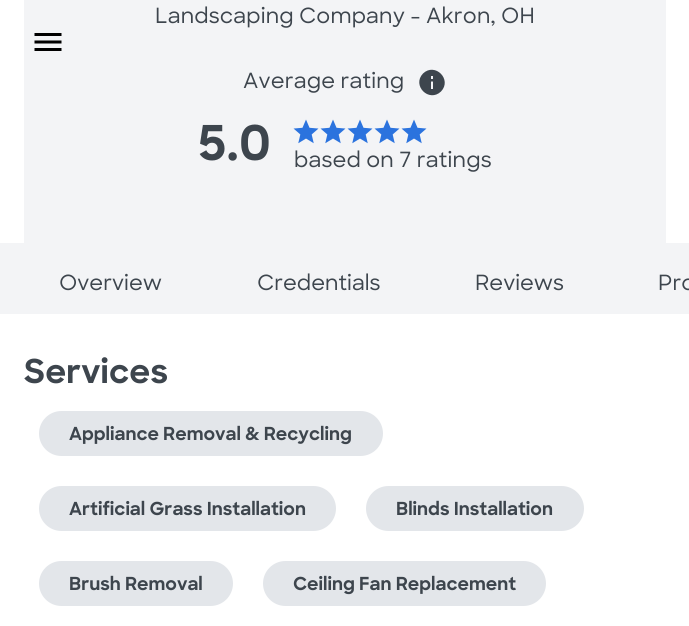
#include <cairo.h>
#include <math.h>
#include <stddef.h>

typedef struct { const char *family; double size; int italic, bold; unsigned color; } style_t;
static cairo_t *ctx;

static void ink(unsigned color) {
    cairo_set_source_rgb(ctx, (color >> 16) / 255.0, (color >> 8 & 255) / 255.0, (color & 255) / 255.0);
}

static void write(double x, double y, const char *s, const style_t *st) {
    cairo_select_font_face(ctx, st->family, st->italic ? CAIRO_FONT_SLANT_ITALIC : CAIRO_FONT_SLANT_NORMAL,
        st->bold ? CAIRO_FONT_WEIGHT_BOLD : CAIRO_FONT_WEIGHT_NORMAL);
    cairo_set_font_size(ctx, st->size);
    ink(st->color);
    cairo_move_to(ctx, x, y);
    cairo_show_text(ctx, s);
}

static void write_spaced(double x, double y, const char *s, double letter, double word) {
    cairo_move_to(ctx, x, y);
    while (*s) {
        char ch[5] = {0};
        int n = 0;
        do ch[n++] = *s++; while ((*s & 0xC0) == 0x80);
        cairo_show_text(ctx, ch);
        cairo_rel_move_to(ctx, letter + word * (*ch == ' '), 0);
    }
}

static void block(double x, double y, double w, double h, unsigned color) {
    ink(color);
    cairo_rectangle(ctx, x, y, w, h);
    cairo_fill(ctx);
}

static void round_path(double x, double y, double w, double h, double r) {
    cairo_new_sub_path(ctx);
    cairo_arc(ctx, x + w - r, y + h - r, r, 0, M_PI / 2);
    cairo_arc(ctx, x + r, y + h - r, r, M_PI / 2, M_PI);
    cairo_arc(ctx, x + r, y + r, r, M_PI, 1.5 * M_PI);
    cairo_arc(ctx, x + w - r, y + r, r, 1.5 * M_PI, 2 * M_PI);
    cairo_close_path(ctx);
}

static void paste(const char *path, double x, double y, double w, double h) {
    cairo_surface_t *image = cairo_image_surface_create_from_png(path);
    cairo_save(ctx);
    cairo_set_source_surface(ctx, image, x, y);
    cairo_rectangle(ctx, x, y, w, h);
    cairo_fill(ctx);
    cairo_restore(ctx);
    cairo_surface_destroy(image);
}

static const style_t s1 = {"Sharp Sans", 48, 0, 1, 0x3d454d};
static const style_t s2 = {"Sharp Sans Medium", 21, 0, 0, 0x3d454d};
static const style_t s3 = {"Sharp Sans", 18, 0, 1, 0x3d454d};

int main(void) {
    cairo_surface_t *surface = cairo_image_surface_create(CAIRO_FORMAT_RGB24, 689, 626);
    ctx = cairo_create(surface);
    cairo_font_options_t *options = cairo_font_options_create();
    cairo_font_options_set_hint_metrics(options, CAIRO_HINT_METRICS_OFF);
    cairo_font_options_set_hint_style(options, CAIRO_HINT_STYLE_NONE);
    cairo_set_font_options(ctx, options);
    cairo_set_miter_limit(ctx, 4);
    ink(0xffffff);
    cairo_paint(ctx);
    block(24, 0, 642, 243, 0xf3f4f6);
    cairo_select_font_face(ctx, "Sharp Sans Medium", CAIRO_FONT_SLANT_NORMAL, CAIRO_FONT_WEIGHT_NORMAL);
    cairo_set_font_size(ctx, 21);
    ink(0x3d454d);
    write_spaced(155, 23, "Landscaping Company - Akron, OH", 0.15, 0);
    write_spaced(243, 88, "Average rating", 0.15, 0);
    cairo_new_path(ctx);
    cairo_move_to(ctx, 433, 79);
    cairo_line_to(ctx, 433, 76);
    cairo_line_to(ctx, 431, 76);
    cairo_line_to(ctx, 431, 79);
    cairo_close_path(ctx);
    cairo_move_to(ctx, 433, 89);
    cairo_line_to(ctx, 433, 81.5);
    cairo_line_to(ctx, 431, 81.5);
    cairo_line_to(ctx, 431, 89);
    cairo_close_path(ctx);
    cairo_move_to(ctx, 423, 73.5);
    cairo_curve_to(ctx, 435, 62, 452.5, 79.5, 441, 91.5);
    cairo_curve_to(ctx, 429, 103, 411.5, 85.5, 423, 73.5);
    cairo_close_path(ctx);
    cairo_fill(ctx);
    write(198, 160, "5.0", &s1);
    paste("pic1.png", 293, 119, 26, 25);
    paste("pic1.png", 320, 119, 26, 25);
    paste("pic1.png", 347, 119, 26, 25);
    paste("pic1.png", 374, 119, 26, 25);
    paste("pic1.png", 401, 119, 26, 25);
    cairo_select_font_face(ctx, "Sharp Sans Medium", CAIRO_FONT_SLANT_NORMAL, CAIRO_FONT_WEIGHT_NORMAL);
    cairo_set_font_size(ctx, 21);
    write_spaced(294, 167, "based on 7 ratings", 0.15, 0);
    block(0, 243, 689, 71, 0xf3f4f6);
    write(59, 290, "Overview", &s2);
    write(257, 290, "Credentials", &s2);
    write(475, 290, "Reviews", &s2);
    write(658, 290, "Pro", &s2);
    cairo_select_font_face(ctx, "Sharp Sans", CAIRO_FONT_SLANT_NORMAL, CAIRO_FONT_WEIGHT_BOLD);
    cairo_set_font_size(ctx, 33);
    write_spaced(24, 383, "Services", 0.15, 0);
    ink(0xe3e6ea);
    round_path(39, 411, 344, 45, 22.5);
    cairo_fill(ctx);
    write(69, 440, "Appliance Removal & Recycling", &s3);
    ink(0xe3e6ea);
    round_path(39, 486, 297, 45, 22.5);
    cairo_fill(ctx);
    write(69, 515, "Artificial Grass Installation", &s3);
    ink(0xe3e6ea);
    round_path(366, 486, 218, 45, 22.5);
    cairo_fill(ctx);
    write(396, 515, "Blinds Installation", &s3);
    ink(0xe3e6ea);
    round_path(39, 561, 194, 45, 22.5);
    cairo_fill(ctx);
    write(69, 590, "Brush Removal", &s3);
    ink(0xe3e6ea);
    round_path(263, 561, 283, 45, 22.5);
    cairo_fill(ctx);
    write(293, 590, "Ceiling Fan Replacement", &s3);
    paste("pic2.png", 34, 33, 28, 18);
    cairo_surface_write_to_png(surface, "screenshot.png");
    cairo_font_options_destroy(options);
    cairo_destroy(ctx);
    cairo_surface_destroy(surface);
    return 0;
}
